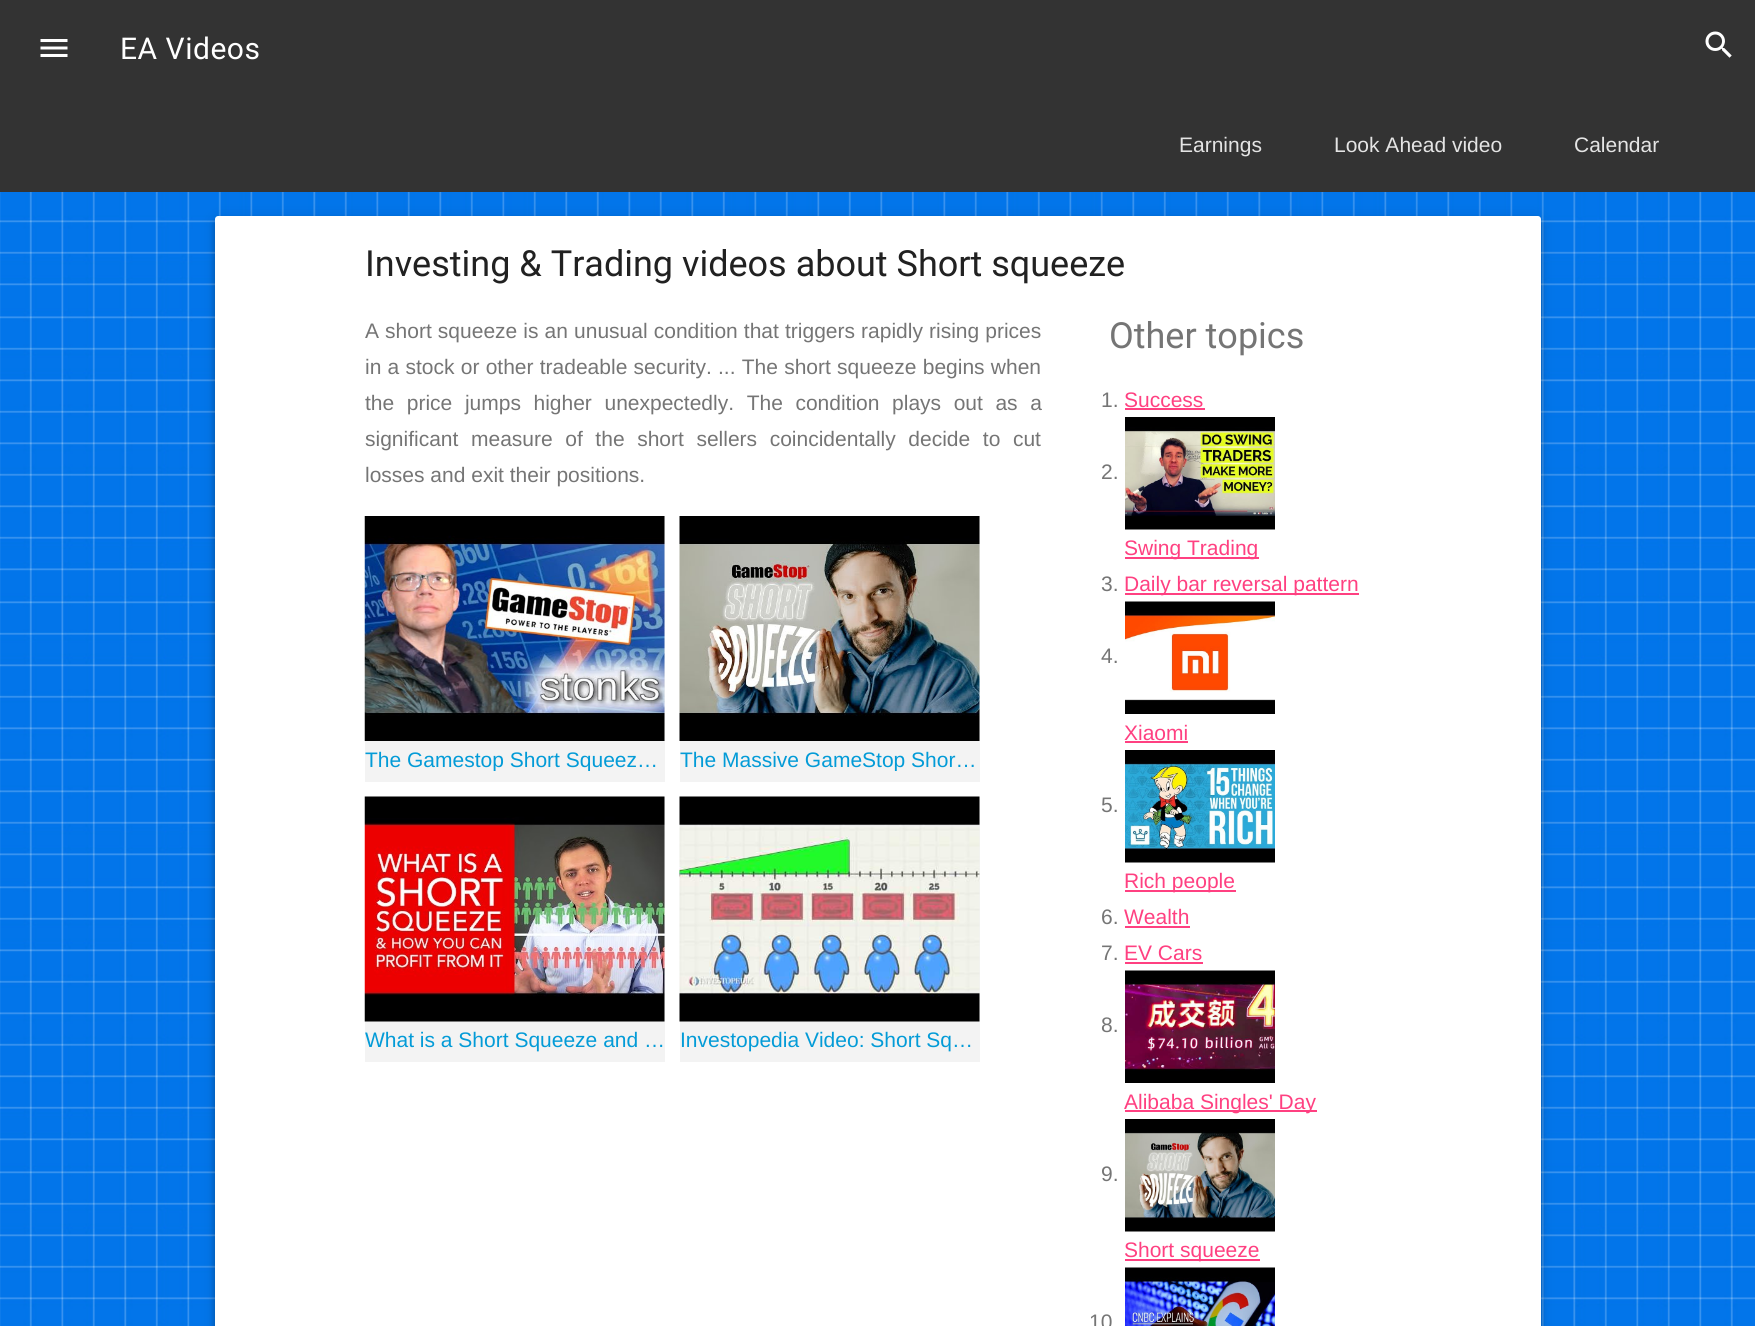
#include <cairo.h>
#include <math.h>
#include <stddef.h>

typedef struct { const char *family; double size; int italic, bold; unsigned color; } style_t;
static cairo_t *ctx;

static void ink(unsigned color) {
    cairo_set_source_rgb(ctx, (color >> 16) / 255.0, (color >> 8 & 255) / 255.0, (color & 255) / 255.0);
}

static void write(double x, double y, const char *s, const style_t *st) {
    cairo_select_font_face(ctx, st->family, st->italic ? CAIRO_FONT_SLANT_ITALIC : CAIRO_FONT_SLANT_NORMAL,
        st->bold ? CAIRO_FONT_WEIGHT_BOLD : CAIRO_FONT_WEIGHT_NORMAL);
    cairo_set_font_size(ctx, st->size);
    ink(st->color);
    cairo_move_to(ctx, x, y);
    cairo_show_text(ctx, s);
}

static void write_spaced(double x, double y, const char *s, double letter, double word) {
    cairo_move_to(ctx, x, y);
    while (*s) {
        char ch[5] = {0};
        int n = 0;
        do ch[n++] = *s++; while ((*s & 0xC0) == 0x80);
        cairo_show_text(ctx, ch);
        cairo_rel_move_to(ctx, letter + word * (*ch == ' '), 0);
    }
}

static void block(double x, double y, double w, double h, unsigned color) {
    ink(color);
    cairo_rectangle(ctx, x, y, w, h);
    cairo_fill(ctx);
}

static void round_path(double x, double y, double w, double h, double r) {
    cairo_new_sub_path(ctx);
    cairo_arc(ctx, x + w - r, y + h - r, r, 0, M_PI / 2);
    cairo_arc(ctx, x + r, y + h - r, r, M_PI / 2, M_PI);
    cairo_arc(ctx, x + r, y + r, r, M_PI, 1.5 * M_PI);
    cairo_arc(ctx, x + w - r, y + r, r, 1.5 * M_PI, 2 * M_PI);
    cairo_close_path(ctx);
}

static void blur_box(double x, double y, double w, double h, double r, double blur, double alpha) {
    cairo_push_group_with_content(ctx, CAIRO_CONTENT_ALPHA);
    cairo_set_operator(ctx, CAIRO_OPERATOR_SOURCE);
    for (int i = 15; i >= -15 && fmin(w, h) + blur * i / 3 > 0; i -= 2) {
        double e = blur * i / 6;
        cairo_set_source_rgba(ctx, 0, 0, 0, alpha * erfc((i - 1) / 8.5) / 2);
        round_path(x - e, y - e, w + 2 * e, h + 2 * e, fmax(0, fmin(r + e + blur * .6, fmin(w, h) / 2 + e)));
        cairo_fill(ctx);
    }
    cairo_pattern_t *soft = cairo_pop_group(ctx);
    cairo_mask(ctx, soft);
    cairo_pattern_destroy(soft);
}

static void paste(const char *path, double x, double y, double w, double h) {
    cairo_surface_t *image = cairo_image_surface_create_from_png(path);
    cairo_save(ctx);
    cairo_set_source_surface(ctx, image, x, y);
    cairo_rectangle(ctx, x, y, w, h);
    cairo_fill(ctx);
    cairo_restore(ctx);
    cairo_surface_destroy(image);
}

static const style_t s1 = {"Liberation Sans", 21, 0, 0, 0xe4e4e4};
static const style_t s2 = {"Roboto", 36, 0, 0, 0x212121};
static const style_t s3 = {"Liberation Sans", 21, 0, 0, 0x757575};
static const style_t s4 = {"Liberation Sans", 21, 0, 0, 0x039bd7};
static const style_t s5 = {"Roboto", 36, 0, 0, 0x757575};
static const style_t s6 = {"Liberation Sans", 21, 0, 0, 0xff4081};

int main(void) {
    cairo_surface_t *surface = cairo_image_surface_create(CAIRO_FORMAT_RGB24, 1755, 1326);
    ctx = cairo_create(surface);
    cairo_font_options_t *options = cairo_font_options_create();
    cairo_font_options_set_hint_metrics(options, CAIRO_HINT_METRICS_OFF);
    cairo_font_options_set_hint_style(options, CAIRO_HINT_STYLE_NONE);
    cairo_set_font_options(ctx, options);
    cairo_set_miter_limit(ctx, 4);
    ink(0xffffff);
    cairo_paint(ctx);
    paste("pic1.png", 0, 192, 1755, 1134);
    block(0, 0, 1755, 192, 0x333333);
    paste("pic2.png", 40, 39, 28, 18);
    cairo_select_font_face(ctx, "Roboto", CAIRO_FONT_SLANT_NORMAL, CAIRO_FONT_WEIGHT_NORMAL);
    cairo_set_font_size(ctx, 30);
    ink(0xffffff);
    write_spaced(120, 59, "EA Videos", 0.5, 0);
    paste("pic3.png", 1705, 31, 27, 27);
    write(1179, 152, "Earnings", &s1);
    write(1334, 152, "Look Ahead video", &s1);
    write(1574, 152, "Calendar", &s1);
    ink(0x000000);
    blur_box(216, 221, 1323, 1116, 1.5, 3, 0.2);
    blur_box(215, 218, 1326, 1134, 3, 7.5, 0.12);
    blur_box(215, 222, 1326, 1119, 3, 4, 0.14);
    ink(0xffffff);
    cairo_new_path(ctx);
    cairo_move_to(ctx, 218, 216);
    cairo_line_to(ctx, 1538, 216);
    cairo_curve_to(ctx, 1539.5, 216, 1541, 217.5, 1541, 219);
    cairo_line_to(ctx, 1541, 1326);
    cairo_line_to(ctx, 215, 1326);
    cairo_line_to(ctx, 215, 219);
    cairo_curve_to(ctx, 215, 217.5, 216.5, 216, 218, 216);
    cairo_close_path(ctx);
    cairo_fill(ctx);
    write(365, 276, "Investing & Trading videos about Short squeeze", &s2);
    cairo_select_font_face(ctx, "Liberation Sans", CAIRO_FONT_SLANT_NORMAL, CAIRO_FONT_WEIGHT_NORMAL);
    cairo_set_font_size(ctx, 21);
    ink(0x757575);
    write_spaced(365, 338, "A short squeeze is an unusual condition that triggers rapidly rising prices", 0, 0.25);
    write_spaced(365, 374, "in a stock or other tradeable security. ... The short squeeze begins when", 0, 0.4);
    write_spaced(365, 410, "the price jumps higher unexpectedly. The condition plays out as a", 0, 6.75);
    write_spaced(365, 446, "significant measure of the short sellers coincidentally decide to cut", 0, 6.75);
    write(365, 482, "losses and exit their positions.", &s3);
    block(365, 516, 300, 266, 0xf3f3f3);
    paste("pic4.png", 364, 516, 301, 225);
    cairo_save(ctx);
    cairo_rectangle(ctx, 365, 741, 300, 30);
    cairo_clip(ctx);
    write(365, 767, "The Gamestop Short Squeez…", &s4);
    cairo_restore(ctx);
    block(680, 516, 300, 266, 0xf3f3f3);
    paste("pic5.png", 679, 516, 301, 225);
    cairo_save(ctx);
    cairo_rectangle(ctx, 680, 741, 300, 30);
    cairo_clip(ctx);
    write(680, 767, "The Massive GameStop Shor…", &s4);
    cairo_restore(ctx);
    block(365, 797, 300, 265, 0xf3f3f3);
    paste("pic6.png", 364, 796, 301, 226);
    write(365, 1047, "What is a Short Squeeze and …", &s4);
    block(680, 797, 300, 265, 0xf3f3f3);
    paste("pic7.png", 679, 796, 301, 226);
    write(680, 1047, "Investopedia Video: Short Sq…", &s4);
    write(1109, 348, "Other topics", &s5);
    write(1101, 407, "1.", &s3);
    write(1124, 407, "Success", &s6);
    block(1125, 408, 80, 2, 0xff4081);
    write(1101, 479, "2.", &s3);
    paste("pic8.png", 1125, 417, 150, 113);
    block(1125, 557, 134, 2, 0xff4081);
    write(1124, 555, "Swing Trading", &s6);
    write(1101, 591, "3.", &s3);
    block(1125, 593, 234, 2, 0xff4081);
    write(1124, 591, "Daily bar reversal pattern", &s6);
    write(1101, 663, "4.", &s3);
    paste("pic9.png", 1125, 601, 150, 113);
    write(1124, 740, "Xiaomi", &s6);
    block(1125, 741, 63, 2, 0xff4081);
    write(1101, 812, "5.", &s3);
    paste("pic10.png", 1125, 750, 150, 113);
    block(1125, 890, 111, 2, 0xff4081);
    write(1124, 888, "Rich people", &s6);
    write(1101, 924, "6.", &s3);
    write(1124, 924, "Wealth", &s6);
    block(1125, 926, 65, 2, 0xff4081);
    write(1101, 960, "7.", &s3);
    write(1124, 960, "EV Cars", &s6);
    block(1125, 962, 78, 2, 0xff4081);
    write(1101, 1032, "8.", &s3);
    paste("pic11.png", 1125, 970, 150, 113);
    block(1125, 1110, 192, 2, 0xff4081);
    write(1124, 1109, "Alibaba Singles' Day", &s6);
    write(1101, 1181, "9.", &s3);
    paste("pic12.png", 1125, 1119, 150, 113);
    block(1125, 1259, 135, 2, 0xff4081);
    write(1124, 1257, "Short squeeze", &s6);
    write(1089, 1329, "10", &s3);
    paste("pic13.png", 1125, 1267, 150, 59);
    cairo_surface_write_to_png(surface, "screenshot.png");
    cairo_font_options_destroy(options);
    cairo_destroy(ctx);
    cairo_surface_destroy(surface);
    return 0;
}
